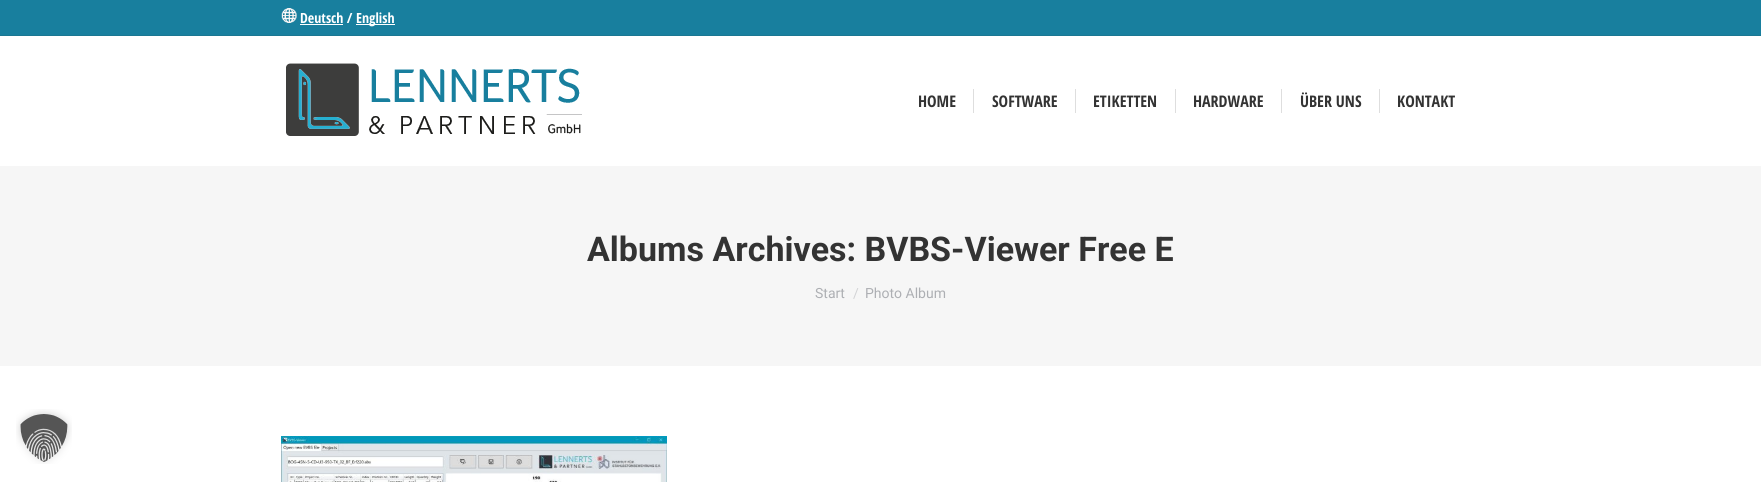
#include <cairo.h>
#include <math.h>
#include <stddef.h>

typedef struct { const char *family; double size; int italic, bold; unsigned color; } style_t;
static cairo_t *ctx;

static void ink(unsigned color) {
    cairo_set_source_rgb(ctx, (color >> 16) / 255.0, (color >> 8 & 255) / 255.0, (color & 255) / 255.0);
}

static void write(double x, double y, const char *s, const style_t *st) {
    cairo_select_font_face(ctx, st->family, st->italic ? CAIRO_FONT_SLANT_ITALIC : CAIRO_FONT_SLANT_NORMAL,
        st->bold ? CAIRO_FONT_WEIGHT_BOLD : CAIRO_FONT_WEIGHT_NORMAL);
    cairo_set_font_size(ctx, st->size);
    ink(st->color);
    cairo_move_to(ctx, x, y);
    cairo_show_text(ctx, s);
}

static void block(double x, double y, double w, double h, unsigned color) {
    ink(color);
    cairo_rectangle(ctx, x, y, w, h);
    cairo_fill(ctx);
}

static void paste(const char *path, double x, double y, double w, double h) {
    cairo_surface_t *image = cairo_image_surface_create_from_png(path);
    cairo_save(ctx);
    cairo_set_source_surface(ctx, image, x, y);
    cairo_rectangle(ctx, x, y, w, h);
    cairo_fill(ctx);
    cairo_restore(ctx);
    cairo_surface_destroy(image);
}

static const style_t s1 = {"Open Sans Condensed", 14, 0, 1, 0xffffff};
static const style_t s2 = {"Open Sans Condensed", 16, 0, 1, 0x333333};
static const style_t s3 = {"Roboto", 34, 0, 1, 0x333333};
static const style_t s4 = {"Roboto", 14, 0, 0, 0xadafb3};
static const style_t s5 = {"Roboto", 14, 0, 0, 0xd2d3d5};

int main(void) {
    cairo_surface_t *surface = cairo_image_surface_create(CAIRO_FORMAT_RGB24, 1761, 482);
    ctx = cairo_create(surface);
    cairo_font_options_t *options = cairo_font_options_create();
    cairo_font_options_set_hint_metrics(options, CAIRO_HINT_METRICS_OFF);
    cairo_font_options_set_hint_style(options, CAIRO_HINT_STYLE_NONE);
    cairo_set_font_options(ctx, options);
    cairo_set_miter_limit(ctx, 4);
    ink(0xffffff);
    cairo_paint(ctx);
    block(0, 0, 1761, 35, 0x187f9e);
    paste("pic1.png", 281, 8, 16, 15);
    write(300, 23, "Deutsch /", &s1);
    block(300, 24, 43, 1, 0xffffff);
    block(356, 24, 39, 1, 0xffffff);
    write(356, 23, "English", &s1);
    block(0, 35, 1761, 1, 0x1b7792);
    paste("pic2.png", 286, 63, 296, 73);
    write(918, 107, "HOME", &s2);
    block(973, 89, 1, 24, 0xdedede);
    write(992, 107, "SOFTWARE", &s2);
    block(1075, 89, 1, 24, 0xdedede);
    write(1093, 107, "ETIKETTEN", &s2);
    block(1175, 89, 1, 24, 0xdedede);
    write(1193, 107, "HARDWARE", &s2);
    block(1281, 89, 1, 24, 0xdedede);
    write(1300, 107, "ÜBER UNS", &s2);
    block(1379, 89, 1, 24, 0xdedede);
    write(1397, 107, "KONTAKT", &s2);
    block(0, 166, 1761, 200, 0xf6f6f6);
    write(587, 261, "Albums Archives: BVBS-Viewer Free E", &s3);
    write(815, 298, "Start", &s4);
    write(853, 298, "/", &s5);
    write(865, 298, "Photo Album", &s4);
    paste("pic3.png", 281, 436, 386, 46);
    paste("pic4.png", 16, 409, 56, 55);
    cairo_surface_write_to_png(surface, "screenshot.png");
    cairo_font_options_destroy(options);
    cairo_destroy(ctx);
    cairo_surface_destroy(surface);
    return 0;
}
